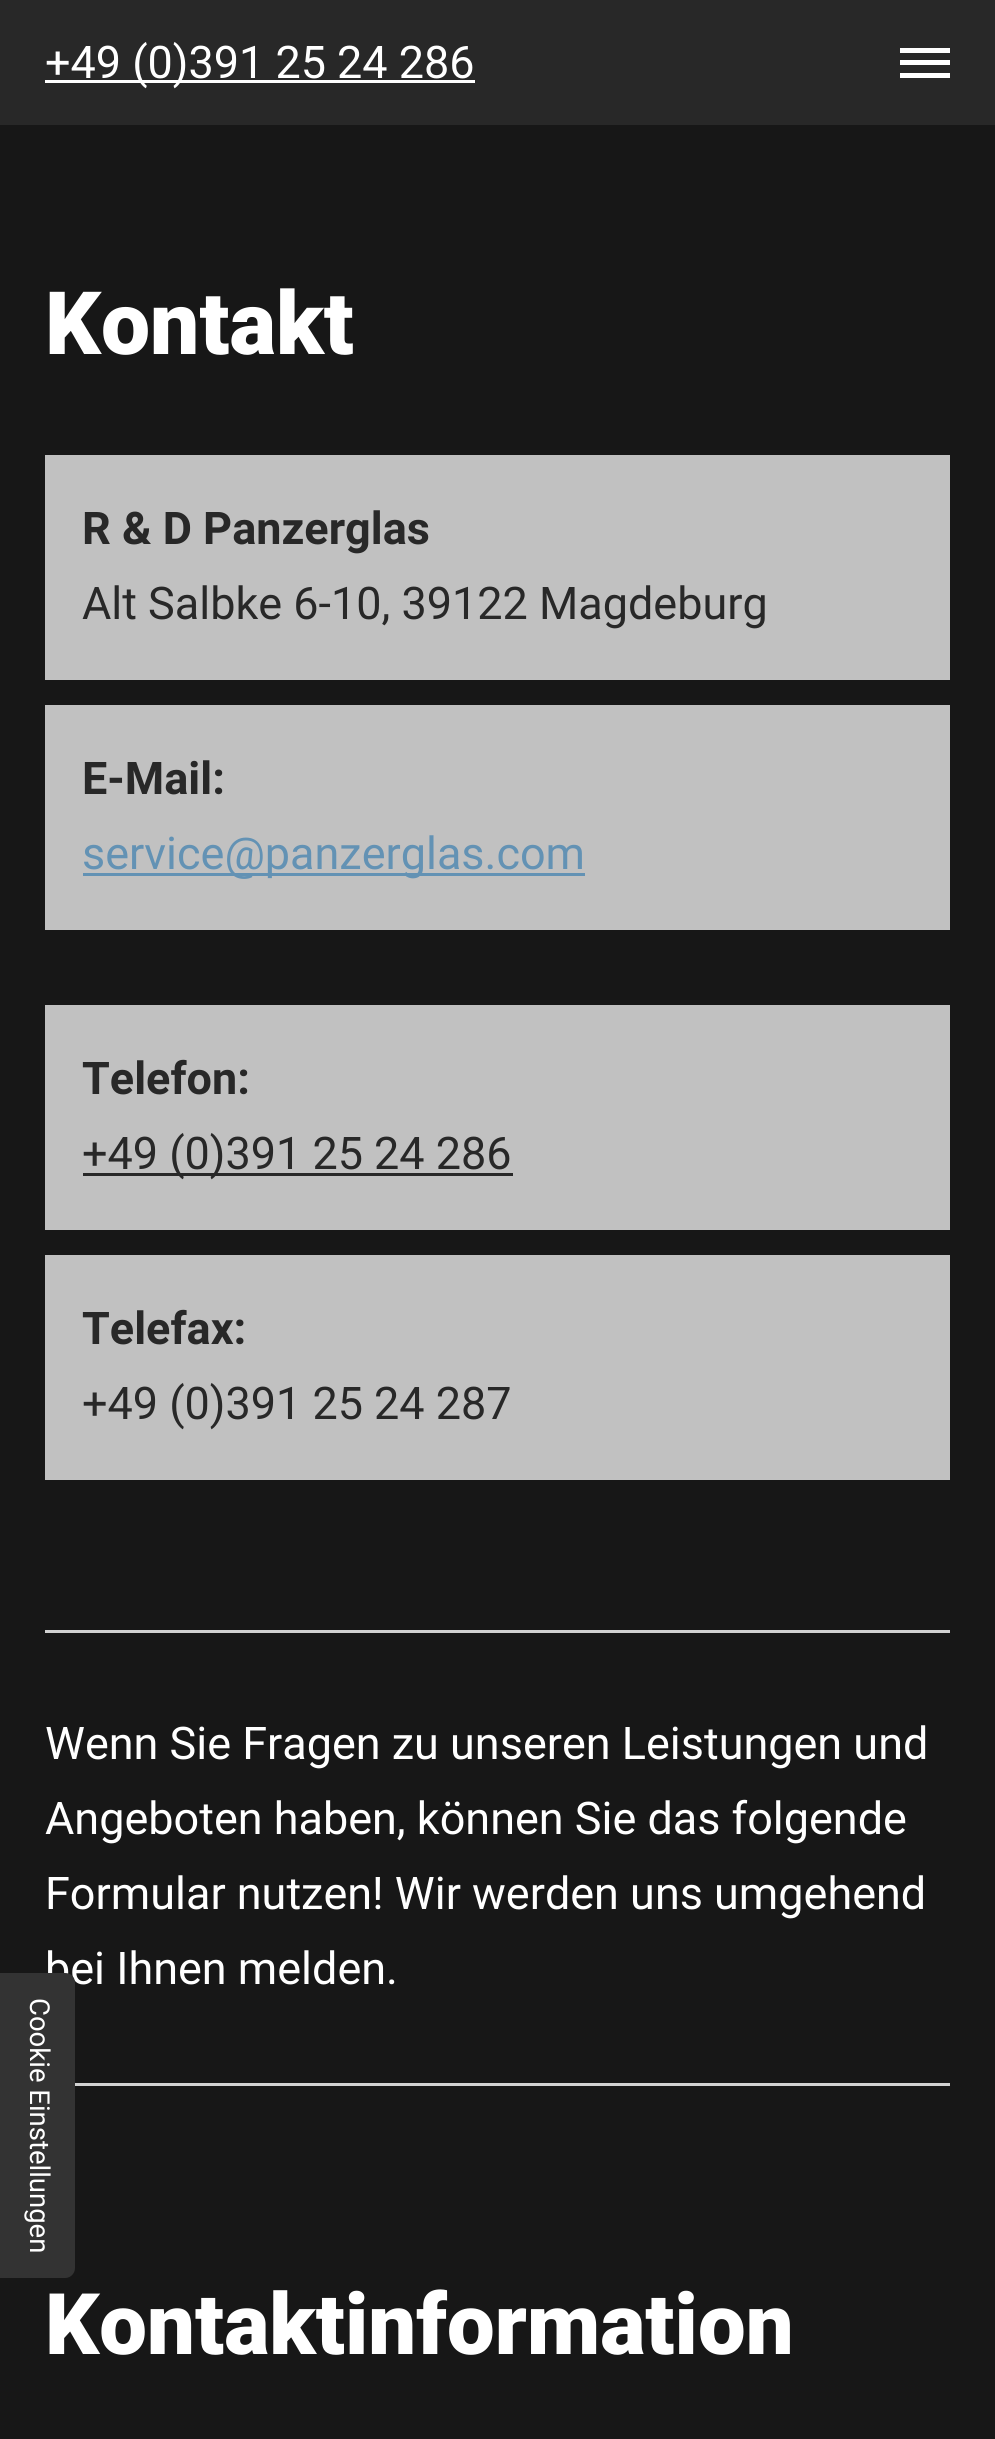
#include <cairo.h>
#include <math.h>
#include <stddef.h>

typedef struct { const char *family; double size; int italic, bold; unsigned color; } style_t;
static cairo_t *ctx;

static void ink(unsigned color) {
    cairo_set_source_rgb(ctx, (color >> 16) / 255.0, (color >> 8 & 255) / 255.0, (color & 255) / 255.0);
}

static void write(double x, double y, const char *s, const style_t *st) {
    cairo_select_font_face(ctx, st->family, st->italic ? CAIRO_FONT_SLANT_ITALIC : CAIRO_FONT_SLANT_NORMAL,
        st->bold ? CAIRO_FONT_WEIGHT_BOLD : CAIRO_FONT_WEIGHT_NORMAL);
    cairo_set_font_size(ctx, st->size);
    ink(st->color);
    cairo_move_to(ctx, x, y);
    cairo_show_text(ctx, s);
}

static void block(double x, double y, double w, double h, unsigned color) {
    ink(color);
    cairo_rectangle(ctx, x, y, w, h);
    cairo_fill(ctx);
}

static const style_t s1 = {"Roboto", 45, 0, 0, 0xffffff};
static const style_t s2 = {"Roboto", 27.5, 0, 0, 0xffffff};
static const style_t s3 = {"Roboto Black", 87.5, 0, 0, 0xffffff};
static const style_t s4 = {"Roboto", 45, 0, 1, 0x282828};
static const style_t s5 = {"Roboto", 45, 0, 0, 0x282828};
static const style_t s6 = {"Roboto", 45, 0, 0, 0x6392b4};
static const style_t s7 = {"Roboto Black", 85, 0, 0, 0xffffff};

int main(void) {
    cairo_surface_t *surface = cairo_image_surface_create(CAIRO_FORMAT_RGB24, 995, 2439);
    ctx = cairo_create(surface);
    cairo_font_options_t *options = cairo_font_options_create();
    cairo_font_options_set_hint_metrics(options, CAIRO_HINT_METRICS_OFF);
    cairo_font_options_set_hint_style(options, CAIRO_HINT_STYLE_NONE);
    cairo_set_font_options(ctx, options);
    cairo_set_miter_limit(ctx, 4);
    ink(0x171717);
    cairo_paint(ctx);
    block(0, 0, 995, 125, 0x282828);
    block(45, 80, 430, 3, 0xffffff);
    write(45, 78, "+49 (0)391 25 24 286", &s1);
    block(900, 60, 50, 5, 0xffffff);
    block(900, 48, 50, 5, 0xffffff);
    block(900, 73, 50, 5, 0xffffff);
    write(45, 1984, "bei Ihnen melden.", &s1);
    ink(0x333333);
    cairo_new_path(ctx);
    cairo_move_to(ctx, 75, 1983);
    cairo_line_to(ctx, 75, 2268);
    cairo_curve_to(ctx, 75, 2273, 71, 2278, 65, 2278);
    cairo_line_to(ctx, 0, 2278);
    cairo_line_to(ctx, 0, 1973);
    cairo_line_to(ctx, 65, 1973);
    cairo_curve_to(ctx, 71, 1973, 75, 1977, 75, 1983);
    cairo_close_path(ctx);
    cairo_fill(ctx);
    cairo_save(ctx);
    cairo_translate(ctx, 30, 1998);
    cairo_rotate(ctx, 90 * M_PI / 180);
    write(0, 0, "Cookie Einstellungen", &s2);
    cairo_restore(ctx);
    write(45, 354, "Kontakt", &s3);
    block(45, 455, 905, 225, 0xc1c1c1);
    write(82, 544, "R & D Panzerglas", &s4);
    write(82, 619, "Alt Salbke 6-10, 39122 Magdeburg", &s5);
    block(45, 705, 905, 225, 0xc1c1c1);
    write(82, 794, "E-Mail:", &s4);
    block(83, 873, 502, 3, 0x6392b4);
    write(82, 869, "service@panzerglas.com", &s6);
    block(45, 1005, 905, 225, 0xc1c1c1);
    write(82, 1094, "Telefon:", &s4);
    block(83, 1173, 430, 3, 0x282828);
    write(82, 1169, "+49 (0)391 25 24 286", &s5);
    block(45, 1255, 905, 225, 0xc1c1c1);
    write(82, 1344, "Telefax:", &s4);
    write(82, 1419, "+49 (0)391 25 24 287", &s5);
    block(45, 1630, 905, 3, 0xd2d2d2);
    block(75, 2083, 875, 3, 0xd2d2d2);
    write(45, 1759, "Wenn Sie Fragen zu unseren Leistungen und", &s1);
    write(45, 1834, "Angeboten haben, können Sie das folgende", &s1);
    write(45, 1909, "Formular nutzen! Wir werden uns umgehend", &s1);
    write(45, 2354, "Kontaktinformation", &s7);
    cairo_surface_write_to_png(surface, "screenshot.png");
    cairo_font_options_destroy(options);
    cairo_destroy(ctx);
    cairo_surface_destroy(surface);
    return 0;
}
